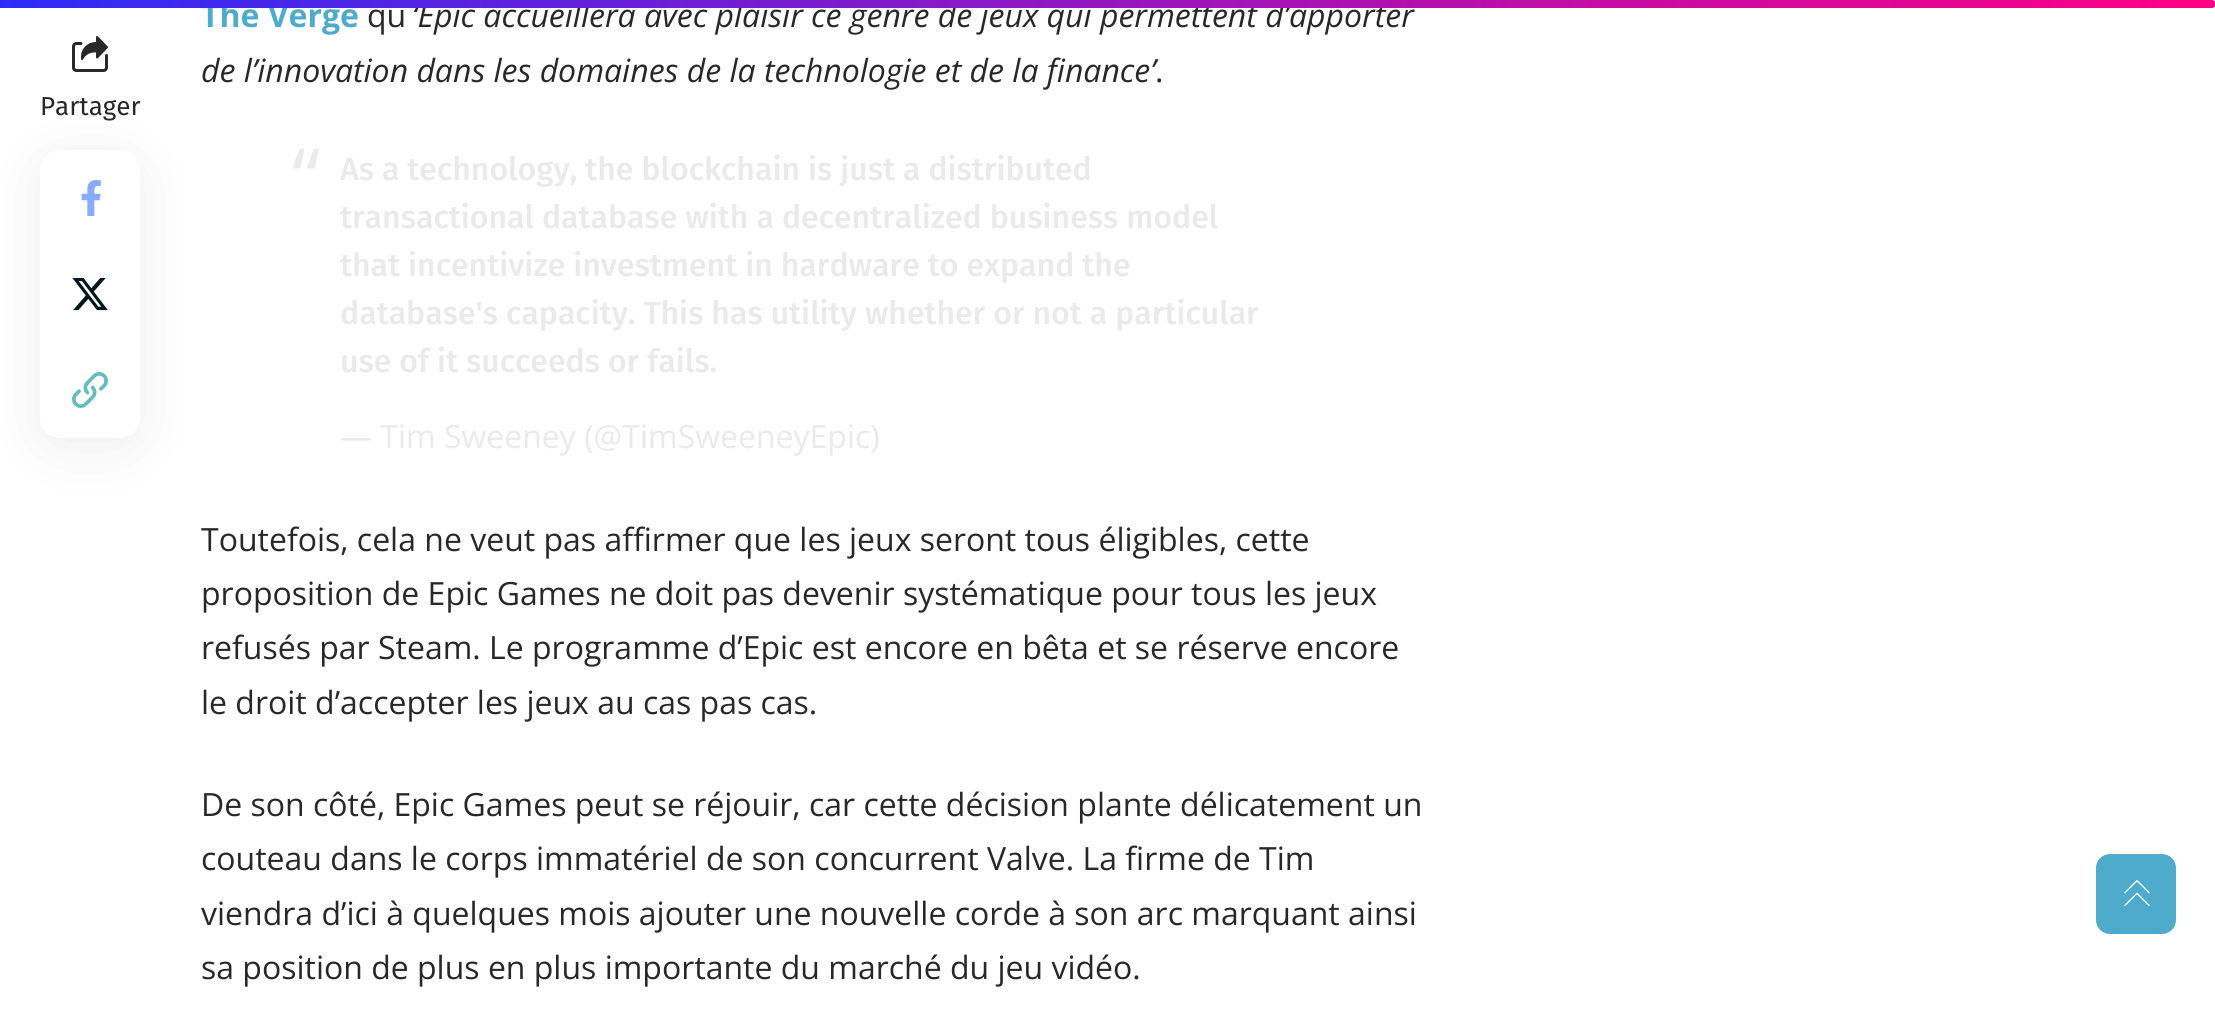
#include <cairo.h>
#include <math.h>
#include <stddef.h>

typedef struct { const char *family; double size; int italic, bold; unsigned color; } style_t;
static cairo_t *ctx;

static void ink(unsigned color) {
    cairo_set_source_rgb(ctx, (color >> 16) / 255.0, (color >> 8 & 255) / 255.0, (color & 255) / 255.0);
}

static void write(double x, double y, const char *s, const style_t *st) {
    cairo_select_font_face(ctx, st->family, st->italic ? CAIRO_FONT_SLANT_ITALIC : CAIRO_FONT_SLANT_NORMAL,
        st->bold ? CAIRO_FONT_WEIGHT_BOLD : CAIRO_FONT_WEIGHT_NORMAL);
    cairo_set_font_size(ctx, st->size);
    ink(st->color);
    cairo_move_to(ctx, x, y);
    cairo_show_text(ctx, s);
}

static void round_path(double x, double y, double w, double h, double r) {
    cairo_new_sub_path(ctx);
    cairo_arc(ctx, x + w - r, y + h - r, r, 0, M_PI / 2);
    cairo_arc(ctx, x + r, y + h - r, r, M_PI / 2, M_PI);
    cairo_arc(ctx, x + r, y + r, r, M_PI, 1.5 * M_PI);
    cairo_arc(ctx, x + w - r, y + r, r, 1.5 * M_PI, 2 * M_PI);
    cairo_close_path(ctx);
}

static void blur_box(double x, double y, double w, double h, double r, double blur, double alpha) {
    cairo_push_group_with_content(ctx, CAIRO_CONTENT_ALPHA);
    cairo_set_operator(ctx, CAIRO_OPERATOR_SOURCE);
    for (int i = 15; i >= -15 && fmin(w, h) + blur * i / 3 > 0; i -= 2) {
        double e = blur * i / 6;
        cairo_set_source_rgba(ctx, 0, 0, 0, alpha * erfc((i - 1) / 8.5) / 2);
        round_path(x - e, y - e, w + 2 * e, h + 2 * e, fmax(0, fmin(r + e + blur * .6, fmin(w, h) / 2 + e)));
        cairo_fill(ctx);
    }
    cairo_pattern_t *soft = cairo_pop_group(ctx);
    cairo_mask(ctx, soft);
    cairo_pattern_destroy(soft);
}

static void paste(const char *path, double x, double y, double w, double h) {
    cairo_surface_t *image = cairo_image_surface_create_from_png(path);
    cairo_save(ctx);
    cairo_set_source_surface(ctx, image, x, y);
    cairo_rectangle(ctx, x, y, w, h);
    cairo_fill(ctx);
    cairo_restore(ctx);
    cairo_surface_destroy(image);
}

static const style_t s1 = {"Open Sans", 32, 0, 1, 0x4eabcc};
static const style_t s2 = {"Open Sans", 32, 1, 0, 0x282828};
static const style_t s3 = {"Fira Sans", 26, 0, 0, 0x282828};
static const style_t s4 = {"Open Sans", 32, 0, 0, 0x282828};
static const style_t s5 = {"Open Sans", 80, 0, 0, 0xeaeaea};
static const style_t s6 = {"Fira Sans Medium", 32, 0, 0, 0xeaeaea};
static const style_t s7 = {"Open Sans", 32, 0, 0, 0xeaeaea};

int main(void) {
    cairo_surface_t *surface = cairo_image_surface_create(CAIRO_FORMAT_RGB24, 2215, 1014);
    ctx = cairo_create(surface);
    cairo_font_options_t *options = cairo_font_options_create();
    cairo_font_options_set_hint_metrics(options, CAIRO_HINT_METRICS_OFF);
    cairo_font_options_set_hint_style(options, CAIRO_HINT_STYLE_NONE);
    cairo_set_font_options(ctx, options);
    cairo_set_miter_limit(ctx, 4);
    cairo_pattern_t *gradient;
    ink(0xffffff);
    cairo_paint(ctx);
    write(201, 27, "The Verge", &s1);
    write(412, 27, "‘Epic accueillera avec plaisir ce genre de jeux qui permettent d’apporter", &s2);
    gradient = cairo_pattern_create_linear(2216, 4, 0, 4);
    cairo_pattern_add_color_stop_rgba(gradient, 0, 1, 0, 0.518, 1);
    cairo_pattern_add_color_stop_rgba(gradient, 1, 0.173, 0.173, 0.973, 1);
    cairo_set_source(ctx, gradient);
    cairo_pattern_destroy(gradient);
    cairo_new_path(ctx);
    cairo_move_to(ctx, 0, 0);
    cairo_line_to(ctx, 2212, 0);
    cairo_curve_to(ctx, 2214, 0, 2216, 2, 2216, 4);
    cairo_curve_to(ctx, 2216, 6, 2214, 8, 2212, 8);
    cairo_line_to(ctx, 0, 8);
    cairo_close_path(ctx);
    cairo_fill(ctx);
    ink(0x000000);
    blur_box(40, 160, 100, 288, 20, 30, 0.07);
    ink(0xffffff);
    round_path(40, 150, 100, 288, 20);
    cairo_fill(ctx);
    paste("pic1.png", 81, 180, 20, 36);
    paste("pic2.png", 72, 278, 36, 32);
    paste("pic3.png", 72, 372, 36, 36);
    paste("pic4.png", 72, 36, 36, 36);
    write(40, 115, "Partager", &s3);
    write(367, 27, "qu", &s4);
    write(201, 82, "de l’innovation dans les domaines de la technologie et de la finance’", &s2);
    write(1155, 82, ".", &s4);
    write(292, 206, "“", &s5);
    write(340, 180, "As a technology, the blockchain is just a distributed", &s6);
    write(340, 228, "transactional database with a decentralized business model", &s6);
    write(340, 276, "that incentivize investment in hardware to expand the", &s6);
    write(340, 324, "database's capacity. This has utility whether or not a particular", &s6);
    write(340, 372, "use of it succeeds or fails.", &s6);
    write(340, 448, "— Tim Sweeney (@TimSweeneyEpic)", &s7);
    write(201, 551, "Toutefois, cela ne veut pas affirmer que les jeux seront tous éligibles, cette", &s4);
    write(201, 605, "proposition de Epic Games ne doit pas devenir systématique pour tous les jeux", &s4);
    write(201, 659, "refusés par Steam. Le programme d’Epic est encore en bêta et se réserve encore", &s4);
    write(201, 714, "le droit d’accepter les jeux au cas pas cas.", &s4);
    write(201, 816, "De son côté, Epic Games peut se réjouir, car cette décision plante délicatement un", &s4);
    write(201, 870, "couteau dans le corps immatériel de son concurrent Valve. La firme de Tim", &s4);
    write(201, 925, "viendra d’ici à quelques mois ajouter une nouvelle corde à son arc marquant ainsi", &s4);
    write(201, 979, "sa position de plus en plus importante du marché du jeu vidéo.", &s4);
    ink(0x4eabcc);
    round_path(2096, 854, 80, 80, 14);
    cairo_fill(ctx);
    paste("pic5.png", 2124, 880, 26, 26);
    cairo_surface_write_to_png(surface, "screenshot.png");
    cairo_font_options_destroy(options);
    cairo_destroy(ctx);
    cairo_surface_destroy(surface);
    return 0;
}
